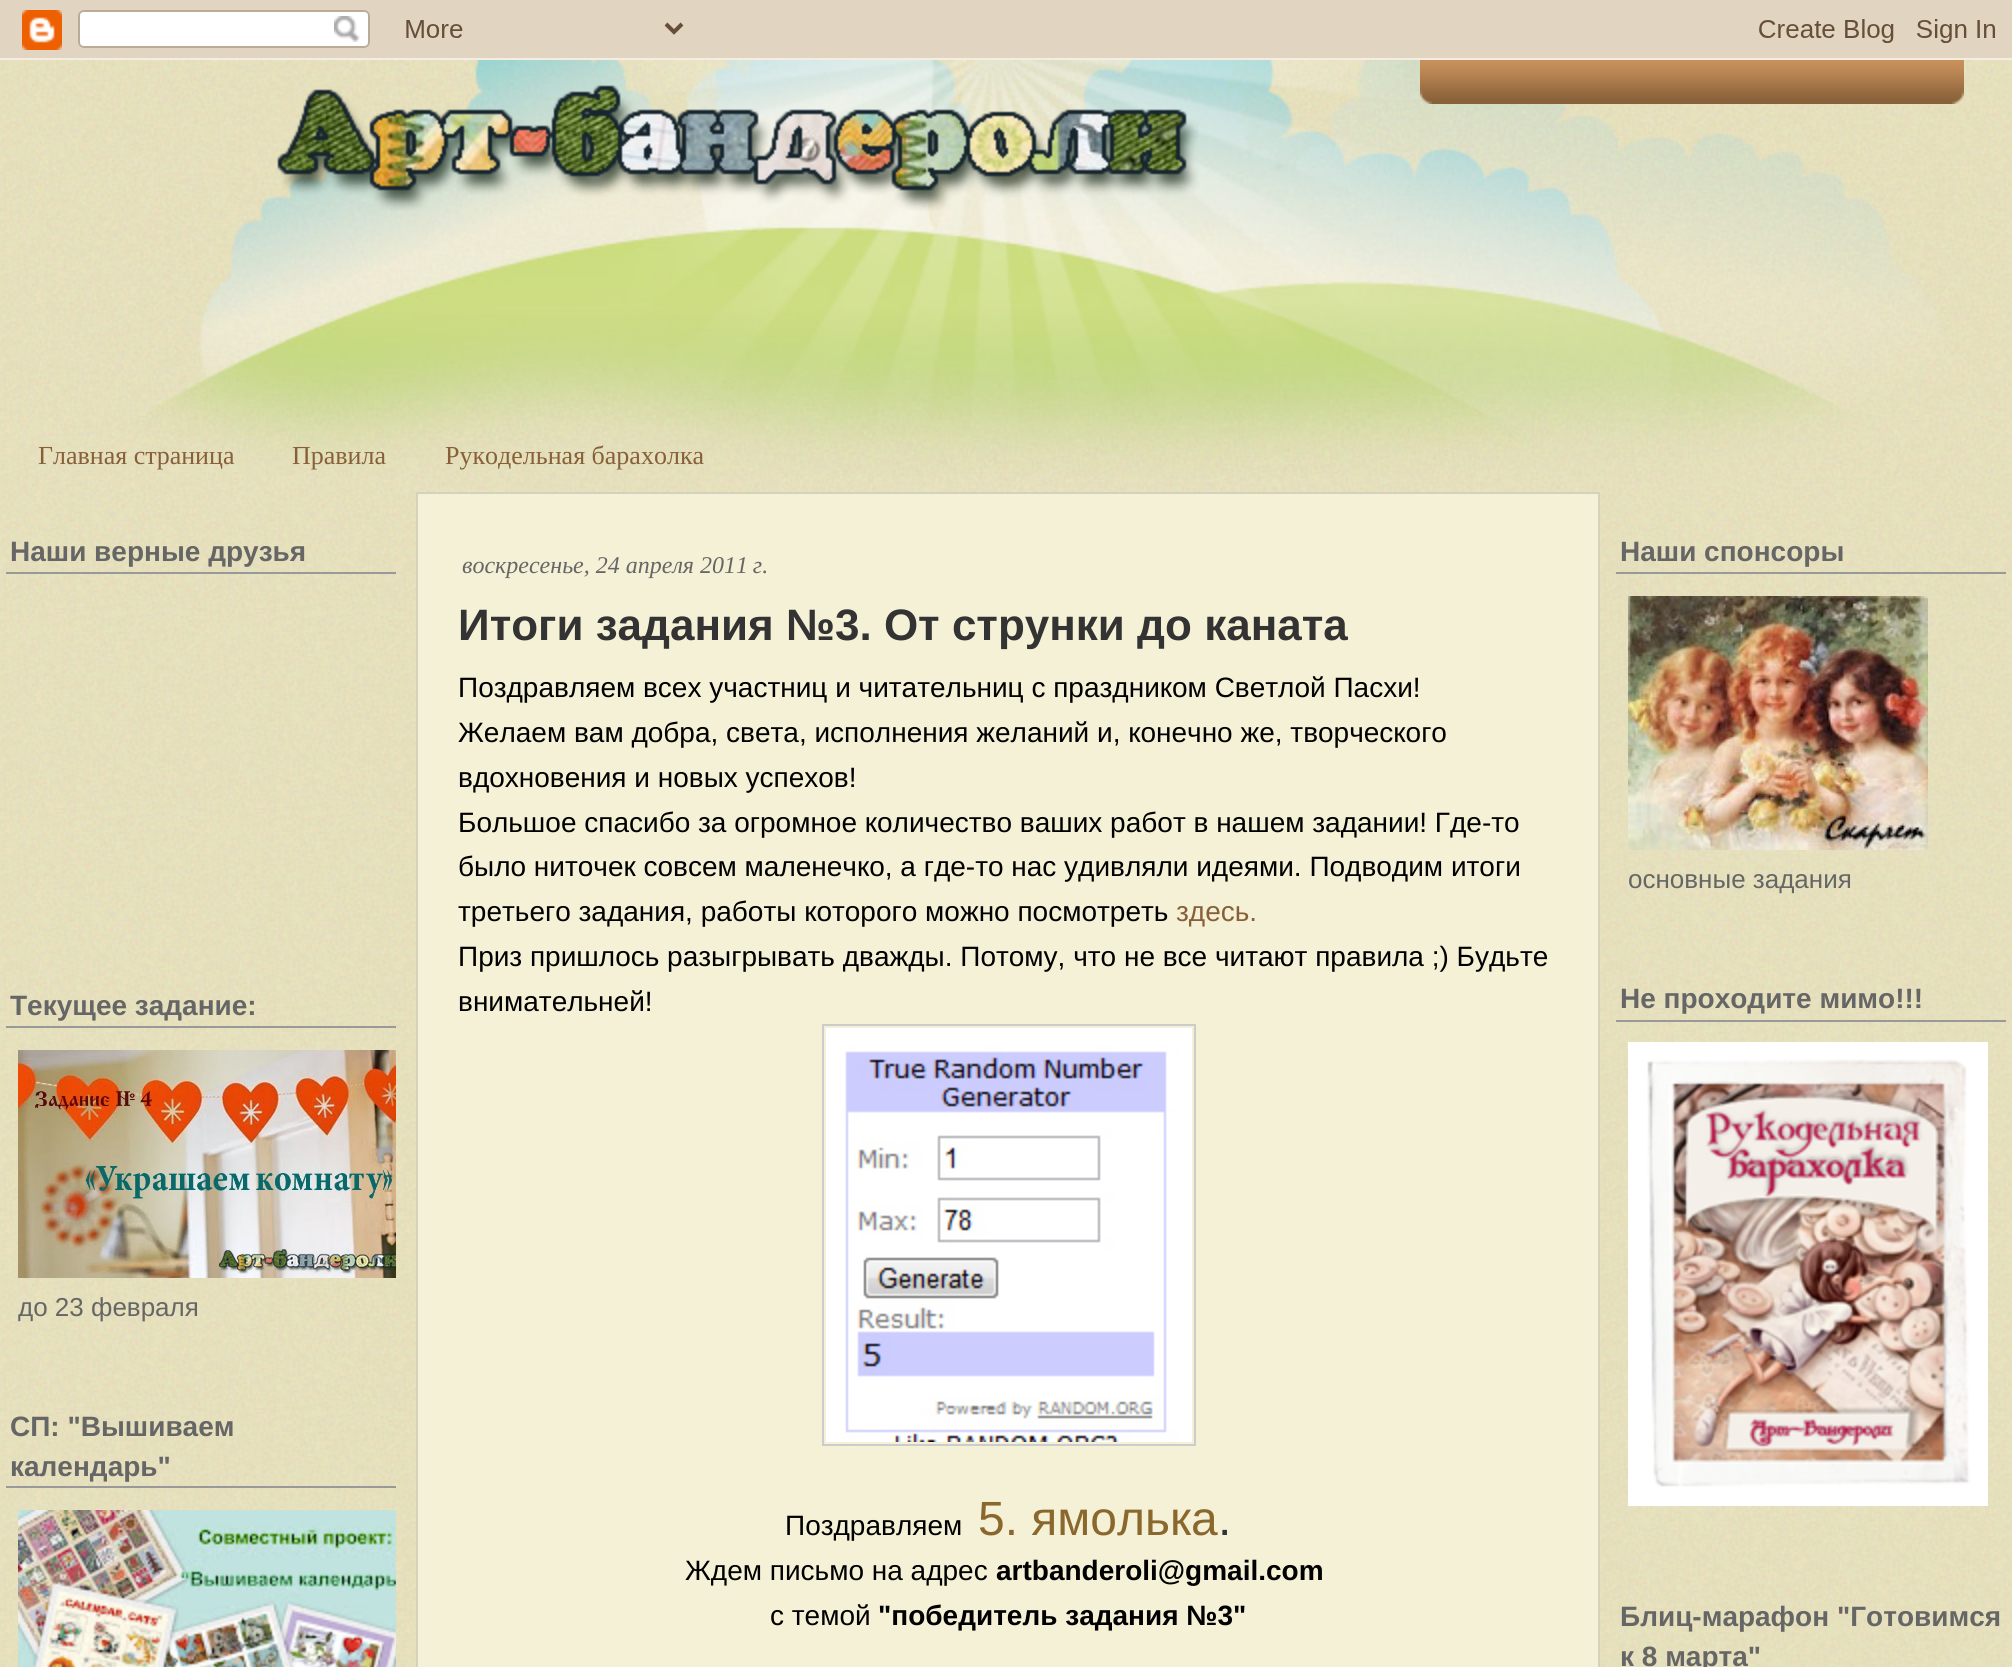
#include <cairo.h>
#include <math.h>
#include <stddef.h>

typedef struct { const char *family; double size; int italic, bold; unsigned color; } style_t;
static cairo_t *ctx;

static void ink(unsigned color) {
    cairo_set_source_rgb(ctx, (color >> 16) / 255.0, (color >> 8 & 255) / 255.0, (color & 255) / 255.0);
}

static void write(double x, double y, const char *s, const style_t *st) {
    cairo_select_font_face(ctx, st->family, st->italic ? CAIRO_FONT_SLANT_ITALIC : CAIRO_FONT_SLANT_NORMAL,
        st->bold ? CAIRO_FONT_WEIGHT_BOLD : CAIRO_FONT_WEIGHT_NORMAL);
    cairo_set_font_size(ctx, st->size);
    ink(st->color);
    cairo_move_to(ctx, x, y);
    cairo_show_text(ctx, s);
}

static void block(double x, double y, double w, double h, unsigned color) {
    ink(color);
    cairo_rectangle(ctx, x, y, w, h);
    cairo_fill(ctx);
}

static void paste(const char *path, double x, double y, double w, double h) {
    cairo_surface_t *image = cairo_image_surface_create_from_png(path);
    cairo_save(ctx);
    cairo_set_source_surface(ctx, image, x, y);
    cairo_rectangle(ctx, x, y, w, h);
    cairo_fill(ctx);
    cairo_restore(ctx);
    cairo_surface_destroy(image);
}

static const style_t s1 = {"Liberation Serif", 26, 0, 0, 0x876039};
static const style_t s2 = {"Liberation Sans", 28, 0, 1, 0x666666};
static const style_t s3 = {"Liberation Sans", 26, 0, 0, 0x666666};
static const style_t s4 = {"Liberation Serif", 24, 1, 0, 0x666666};
static const style_t s5 = {"Liberation Sans", 44, 0, 1, 0x333333};
static const style_t s6 = {"Liberation Sans", 28, 0, 0, 0x000000};
static const style_t s7 = {"Liberation Sans", 28, 0, 0, 0x876039};
static const style_t s8 = {"Liberation Sans", 48, 0, 0, 0x8a672c};
static const style_t s9 = {"Liberation Sans", 48, 0, 0, 0x333333};
static const style_t s10 = {"Liberation Sans", 28, 0, 1, 0x000000};

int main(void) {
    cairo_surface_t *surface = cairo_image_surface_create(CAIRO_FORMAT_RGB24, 2012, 1667);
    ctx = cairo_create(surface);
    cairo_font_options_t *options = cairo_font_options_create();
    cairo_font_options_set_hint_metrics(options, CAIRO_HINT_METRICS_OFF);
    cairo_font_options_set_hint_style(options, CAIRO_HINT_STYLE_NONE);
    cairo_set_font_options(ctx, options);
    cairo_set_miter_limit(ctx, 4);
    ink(0xffffff);
    cairo_paint(ctx);
    paste("pic1.png", 0, 60, 2012, 1607);
    paste("pic2.png", 0, 0, 2012, 60);
    paste("pic3.png", 46, 60, 1920, 434);
    paste("pic4.png", 277, 85, 922, 126);
    paste("pic5.png", 1420, 60, 544, 44);
    write(38, 464, "Главная страница", &s1);
    write(292, 464, "Правила", &s1);
    write(445, 464, "Рукодельная барахолка", &s1);
    block(6, 572, 390, 2, 0x999999);
    write(10, 561, "Наши верные друзья", &s2);
    block(6, 1026, 390, 2, 0x999999);
    write(10, 1015, "Текущее задание:", &s2);
    paste("pic6.png", 18, 1050, 378, 228);
    write(18, 1316, "до 23 февраля", &s3);
    block(6, 1486, 390, 2, 0x999999);
    write(10, 1436, "СП: \"Вышиваем", &s2);
    write(10, 1476, "календарь\"", &s2);
    paste("pic7.png", 18, 1510, 378, 157);
    ink(0xf5f1d6);
    cairo_rectangle(ctx, 417, 493, 1182, 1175);
    cairo_fill_preserve(ctx);
    ink(0xd5d2bb);
    cairo_stroke(ctx);
    write(462, 573, "воскресенье, 24 апреля 2011 г.", &s4);
    write(458, 640, "Итоги задания №3. От струнки до каната", &s5);
    write(458, 697, "Поздравляем всех участниц и читательниц с праздником Светлой Пасхи!", &s6);
    write(458, 742, "Желаем вам добра, света, исполнения желаний и, конечно же, творческого", &s6);
    write(458, 787, "вдохновения и новых успехов!", &s6);
    write(458, 832, "Большое спасибо за огромное количество ваших работ в нашем задании! Где-то", &s6);
    write(458, 876, "было ниточек совсем маленечко, а где-то нас удивляли идеями. Подводим итоги", &s6);
    write(458, 921, "третьего задания, работы которого можно посмотреть", &s6);
    write(1176, 921, "здесь.", &s7);
    write(458, 966, "Приз пришлось разыгрывать дважды. Потому, что не все читают правила ;) Будьте", &s6);
    write(458, 1011, "внимательней!", &s6);
    cairo_rectangle(ctx, 823, 1025, 372, 420);
    ink(0xcccccc);
    cairo_stroke(ctx);
    paste("pic8.png", 826, 1028, 366, 414);
    write(785, 1535, "Поздравляем", &s6);
    write(978, 1535, "5. ямолька", &s8);
    write(1218, 1535, ".", &s9);
    write(685, 1580, "Ждем письмо на адрес", &s6);
    write(996, 1580, "artbanderoli@gmail.com", &s10);
    write(770, 1625, "с темой", &s6);
    write(878, 1625, "\"победитель задания №3\"", &s10);
    block(1616, 572, 390, 2, 0x999999);
    write(1620, 561, "Наши спонсоры", &s2);
    paste("pic9.png", 1628, 596, 300, 254);
    write(1628, 888, "основные задания", &s3);
    block(1616, 1020, 390, 2, 0x999999);
    write(1620, 1008, "Не проходите мимо!!!", &s2);
    paste("pic10.png", 1628, 1042, 360, 464);
    write(1620, 1626, "Блиц-марафон \"Готовимся", &s2);
    write(1620, 1666, "к 8 марта\"", &s2);
    cairo_surface_write_to_png(surface, "screenshot.png");
    cairo_font_options_destroy(options);
    cairo_destroy(ctx);
    cairo_surface_destroy(surface);
    return 0;
}
